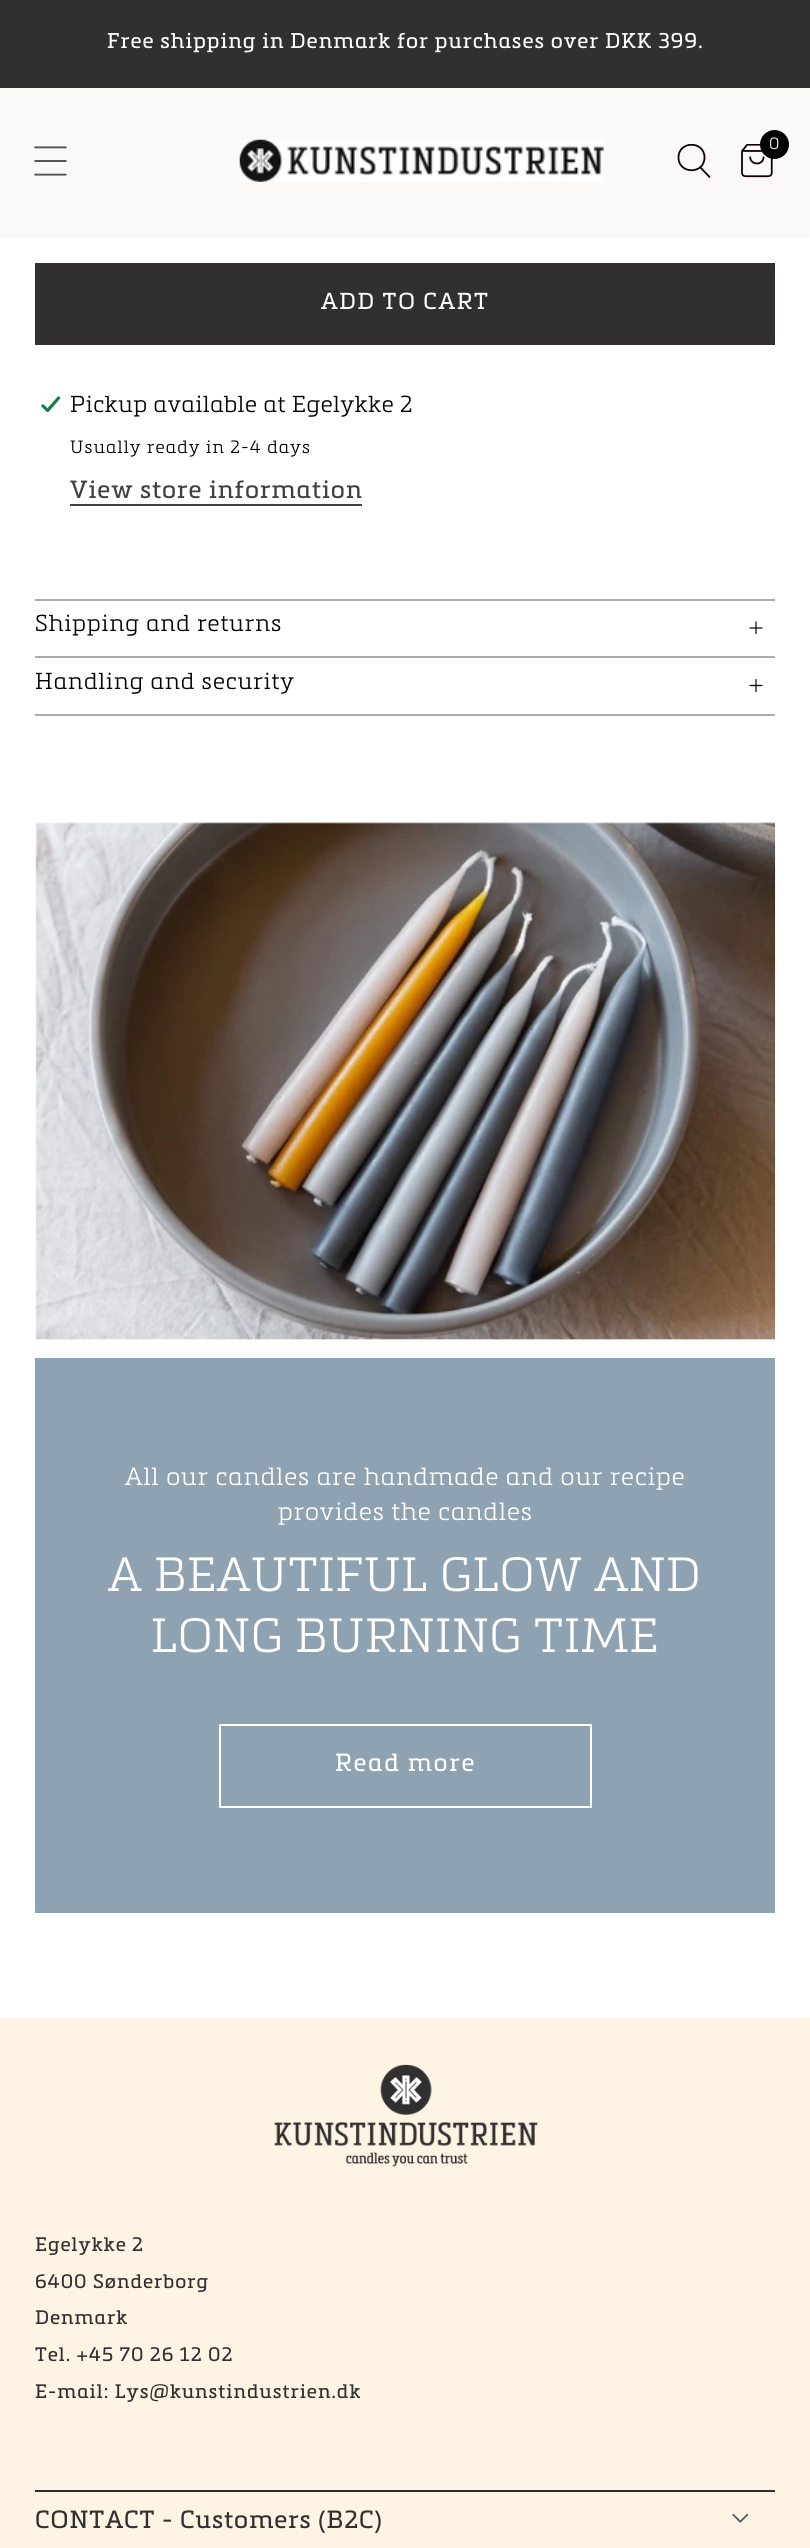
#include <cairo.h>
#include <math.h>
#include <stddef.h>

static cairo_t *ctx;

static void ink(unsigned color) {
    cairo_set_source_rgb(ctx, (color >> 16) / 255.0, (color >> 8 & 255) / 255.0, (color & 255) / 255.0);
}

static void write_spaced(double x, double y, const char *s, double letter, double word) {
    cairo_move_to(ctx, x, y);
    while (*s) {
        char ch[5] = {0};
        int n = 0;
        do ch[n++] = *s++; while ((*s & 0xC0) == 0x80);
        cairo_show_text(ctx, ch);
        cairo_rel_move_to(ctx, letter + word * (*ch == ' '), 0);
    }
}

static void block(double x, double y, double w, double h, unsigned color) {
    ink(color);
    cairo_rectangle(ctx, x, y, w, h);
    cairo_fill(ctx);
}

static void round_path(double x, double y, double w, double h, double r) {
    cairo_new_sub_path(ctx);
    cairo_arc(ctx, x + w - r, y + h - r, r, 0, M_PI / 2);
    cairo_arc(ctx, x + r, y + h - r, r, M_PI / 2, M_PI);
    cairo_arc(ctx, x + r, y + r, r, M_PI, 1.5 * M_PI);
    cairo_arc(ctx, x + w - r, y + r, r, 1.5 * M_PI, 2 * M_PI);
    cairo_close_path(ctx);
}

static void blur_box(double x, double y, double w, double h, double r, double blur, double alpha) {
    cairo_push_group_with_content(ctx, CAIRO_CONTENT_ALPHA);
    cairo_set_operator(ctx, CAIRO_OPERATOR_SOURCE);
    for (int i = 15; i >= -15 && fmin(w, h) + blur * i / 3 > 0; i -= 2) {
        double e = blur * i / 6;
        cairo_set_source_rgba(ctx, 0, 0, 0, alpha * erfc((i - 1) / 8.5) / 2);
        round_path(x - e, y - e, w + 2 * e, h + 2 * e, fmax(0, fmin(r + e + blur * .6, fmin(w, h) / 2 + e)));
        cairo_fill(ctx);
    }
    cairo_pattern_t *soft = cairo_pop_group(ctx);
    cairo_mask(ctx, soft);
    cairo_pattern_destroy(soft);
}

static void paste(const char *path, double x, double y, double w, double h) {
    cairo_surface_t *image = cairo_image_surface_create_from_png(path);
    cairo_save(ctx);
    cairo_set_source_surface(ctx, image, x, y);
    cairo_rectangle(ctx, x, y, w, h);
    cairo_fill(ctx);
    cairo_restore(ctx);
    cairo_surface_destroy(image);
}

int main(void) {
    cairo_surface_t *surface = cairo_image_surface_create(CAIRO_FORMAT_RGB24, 810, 2548);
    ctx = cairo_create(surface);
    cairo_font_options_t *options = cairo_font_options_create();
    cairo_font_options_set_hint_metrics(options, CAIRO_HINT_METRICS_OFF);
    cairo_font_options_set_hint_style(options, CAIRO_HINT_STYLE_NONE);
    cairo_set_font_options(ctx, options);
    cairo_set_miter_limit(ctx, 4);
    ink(0xffffff);
    cairo_paint(ctx);
    block(0, 0, 810, 88, 0x322f31);
    cairo_select_font_face(ctx, "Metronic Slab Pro", CAIRO_FONT_SLANT_NORMAL, CAIRO_FONT_WEIGHT_NORMAL);
    cairo_set_font_size(ctx, 21);
    ink(0xffffff);
    write_spaced(107, 48, "Free shipping in Denmark for purchases over DKK 399.", 1.05, 0);
    ink(0x000000);
    blur_box(0, 89, 810, 147, 0, 2, 0.05);
    block(0, 88, 810, 147, 0xfbf9f7);
    paste("pic1.png", 34, 146, 33, 30);
    paste("pic2.png", 239, 139, 365, 43);
    cairo_save(ctx);
    cairo_rectangle(ctx, 676, 144, 35, 35);
    cairo_clip(ctx);
    cairo_new_path(ctx);
    cairo_move_to(ctx, 701, 168);
    cairo_line_to(ctx, 709.5, 177);
    cairo_move_to(ctx, 704.5, 157.5);
    cairo_curve_to(ctx, 704.5, 174.5, 678.5, 174.5, 678.5, 157.5);
    cairo_curve_to(ctx, 678.5, 140.5, 704.5, 140.5, 704.5, 157.5);
    cairo_close_path(ctx);
    ink(0x100000);
    cairo_set_line_width(ctx, 1.8);
    cairo_set_line_cap(ctx, CAIRO_LINE_CAP_ROUND);
    cairo_set_line_join(ctx, CAIRO_LINE_JOIN_ROUND);
    cairo_stroke(ctx);
    cairo_restore(ctx);
    paste("pic3.png", 741, 144, 32, 34);
    ink(0x000000);
    cairo_arc(ctx, 774.5, 144.5, 14.5, 0, 2 * M_PI);
    cairo_fill(ctx);
    cairo_select_font_face(ctx, "Metronic Slab Pro Light", CAIRO_FONT_SLANT_NORMAL, CAIRO_FONT_WEIGHT_NORMAL);
    cairo_set_font_size(ctx, 16);
    ink(0xffffff);
    write_spaced(769, 149, "0", 1.05, 0);
    block(35, 263, 740, 82, 0x322f31);
    cairo_select_font_face(ctx, "Metronic Slab Pro", CAIRO_FONT_SLANT_NORMAL, CAIRO_FONT_WEIGHT_NORMAL);
    cairo_set_font_size(ctx, 22.75);
    ink(0xffffff);
    write_spaced(321, 309, "ADD TO CART", 1.75, 0);
    paste("pic4.png", 41, 396, 20, 17);
    cairo_select_font_face(ctx, "Metronic Slab Pro Light", CAIRO_FONT_SLANT_NORMAL, CAIRO_FONT_WEIGHT_NORMAL);
    ink(0x000000);
    write_spaced(70, 412, "Pickup available at Egelykke 2", 0.7, 0);
    cairo_set_font_size(ctx, 17.5);
    write_spaced(70, 453, "Usually ready in 2-4 days", 1.25, 0);
    cairo_select_font_face(ctx, "Metronic Slab Pro", CAIRO_FONT_SLANT_NORMAL, CAIRO_FONT_WEIGHT_NORMAL);
    cairo_set_font_size(ctx, 24.5);
    ink(0x404040);
    write_spaced(70, 498, "View store information", 1.05, 0);
    block(70, 504, 292, 2, 0x404040);
    block(35, 599, 740, 2, 0xadacad);
    block(35, 656, 740, 2, 0xadacad);
    cairo_select_font_face(ctx, "Metronic Slab Pro Light", CAIRO_FONT_SLANT_NORMAL, CAIRO_FONT_WEIGHT_NORMAL);
    cairo_set_font_size(ctx, 22.75);
    ink(0x000000);
    write_spaced(35, 631, "Shipping and returns", 1.05, 0);
    cairo_new_path(ctx);
    cairo_move_to(ctx, 750, 628);
    cairo_line_to(ctx, 762, 628);
    cairo_move_to(ctx, 756, 622);
    cairo_line_to(ctx, 756, 633.5);
    cairo_set_line_width(ctx, 1.2);
    cairo_set_line_cap(ctx, CAIRO_LINE_CAP_ROUND);
    cairo_stroke(ctx);
    block(35, 714, 740, 2, 0xadacad);
    ink(0x000000);
    write_spaced(35, 689, "Handling and security", 1.05, 0);
    cairo_new_path(ctx);
    cairo_move_to(ctx, 750, 685.5);
    cairo_line_to(ctx, 762, 685.5);
    cairo_move_to(ctx, 756, 679.5);
    cairo_line_to(ctx, 756, 691.5);
    cairo_stroke(ctx);
    paste("pic5.png", 35, 822, 741, 518);
    block(35, 1358, 740, 555, 0x8ea2b1);
    cairo_set_font_size(ctx, 24.5);
    ink(0xffffff);
    write_spaced(125, 1485, "All our candles are handmade and our recipe", 1.05, 0);
    write_spaced(278, 1520, "provides the candles", 1.05, 0);
    cairo_set_font_size(ctx, 47.25);
    write_spaced(108, 1591, "A BEAUTIFUL GLOW AND", 1.05, 0);
    write_spaced(151, 1652, "LONG BURNING TIME", 1.05, 0);
    cairo_rectangle(ctx, 220, 1725, 371, 82);
    cairo_set_line_width(ctx, 2);
    cairo_set_line_cap(ctx, CAIRO_LINE_CAP_BUTT);
    cairo_stroke(ctx);
    cairo_select_font_face(ctx, "Metronic Slab Pro", CAIRO_FONT_SLANT_NORMAL, CAIRO_FONT_WEIGHT_NORMAL);
    cairo_set_font_size(ctx, 24.5);
    write_spaced(335, 1771, "Read more", 1.75, 0);
    block(0, 2018, 810, 530, 0xfdf4e3);
    paste("pic6.png", 274, 2064, 264, 103);
    cairo_set_font_size(ctx, 19.25);
    ink(0x322f31);
    write_spaced(35, 2251, "Egelykke 2", 1.05, 0);
    write_spaced(35, 2288, "6400 Sønderborg", 1.05, 0);
    write_spaced(35, 2324, "Denmark", 1.05, 0);
    write_spaced(35, 2361, "Tel. +45 70 26 12 02", 1.05, 0);
    write_spaced(35, 2398, "E-mail: Lys@kunstindustrien.dk", 1.05, 0);
    block(35, 2490, 740, 2, 0x322f31);
    cairo_set_font_size(ctx, 24.5);
    write_spaced(35, 2528, "CONTACT - Customers (B2C)", 1.05, 0);
    paste("pic7.png", 732, 2513, 17, 10);
    cairo_surface_write_to_png(surface, "screenshot.png");
    cairo_font_options_destroy(options);
    cairo_destroy(ctx);
    cairo_surface_destroy(surface);
    return 0;
}
